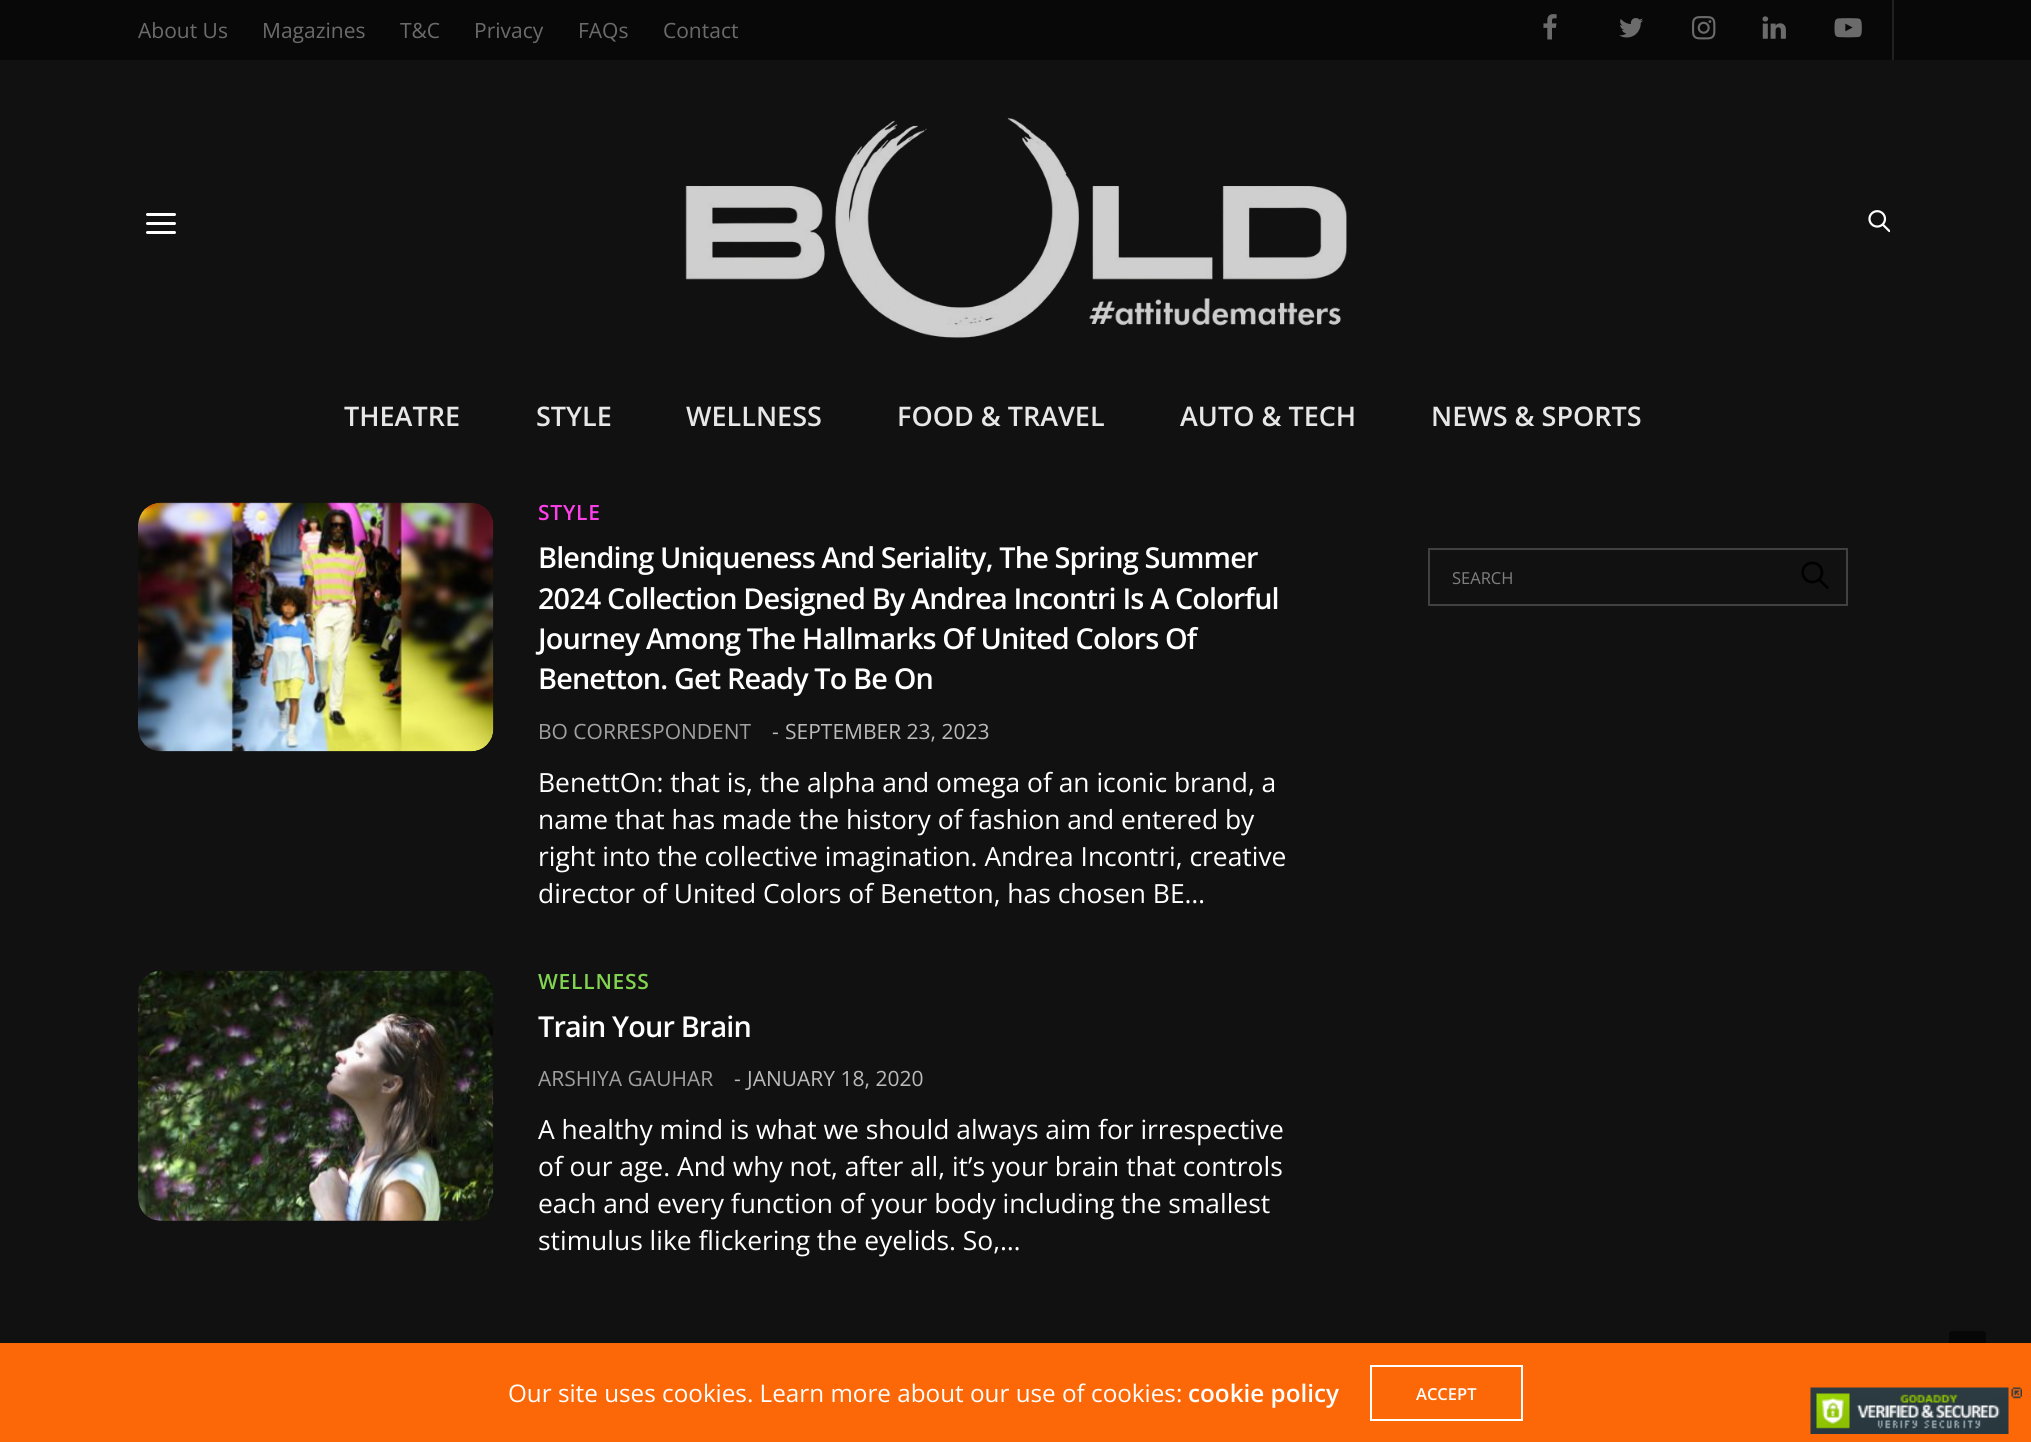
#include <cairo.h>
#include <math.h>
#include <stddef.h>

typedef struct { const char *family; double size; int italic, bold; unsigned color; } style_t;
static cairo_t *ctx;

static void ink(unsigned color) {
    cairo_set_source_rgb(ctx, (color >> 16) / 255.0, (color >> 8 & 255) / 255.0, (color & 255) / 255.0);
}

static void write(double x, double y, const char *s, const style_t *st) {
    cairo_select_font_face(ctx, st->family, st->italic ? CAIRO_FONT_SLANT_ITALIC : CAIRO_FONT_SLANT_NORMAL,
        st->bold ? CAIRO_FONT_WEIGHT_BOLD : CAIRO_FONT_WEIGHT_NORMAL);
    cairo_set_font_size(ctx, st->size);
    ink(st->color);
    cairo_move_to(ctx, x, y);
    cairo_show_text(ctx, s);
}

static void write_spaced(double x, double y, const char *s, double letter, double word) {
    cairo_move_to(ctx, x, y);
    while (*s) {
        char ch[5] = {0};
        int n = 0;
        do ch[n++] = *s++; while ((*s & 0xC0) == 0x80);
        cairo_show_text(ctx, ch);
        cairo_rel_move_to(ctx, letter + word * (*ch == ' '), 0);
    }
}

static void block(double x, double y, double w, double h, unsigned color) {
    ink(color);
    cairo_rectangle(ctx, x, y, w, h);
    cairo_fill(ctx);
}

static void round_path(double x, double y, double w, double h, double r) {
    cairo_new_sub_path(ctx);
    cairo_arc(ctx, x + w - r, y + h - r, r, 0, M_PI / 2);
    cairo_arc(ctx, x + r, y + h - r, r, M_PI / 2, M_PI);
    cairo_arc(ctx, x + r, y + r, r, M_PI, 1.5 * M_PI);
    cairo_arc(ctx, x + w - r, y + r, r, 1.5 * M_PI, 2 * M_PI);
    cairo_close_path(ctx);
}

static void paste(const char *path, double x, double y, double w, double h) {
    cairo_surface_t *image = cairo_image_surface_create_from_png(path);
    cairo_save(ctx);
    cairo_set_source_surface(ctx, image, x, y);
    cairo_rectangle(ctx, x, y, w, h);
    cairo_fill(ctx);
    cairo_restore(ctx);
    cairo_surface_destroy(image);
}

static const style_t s1 = {"Open Sans", 21, 0, 0, 0x6b6b6b};
static const style_t s2 = {"Open Sans SemiBold", 27, 0, 0, 0xe7e7e7};
static const style_t s3 = {"Open Sans", 21, 0, 0, 0xa0a0a0};
static const style_t s4 = {"Open Sans", 21, 0, 0, 0xbbbbbb};
static const style_t s5 = {"Open Sans", 26.4, 0, 0, 0xffffff};
static const style_t s6 = {"Open Sans", 16.5, 0, 0, 0x808080};
static const style_t s7 = {"Open Sans", 24.25, 0, 0, 0xffffff};
static const style_t s8 = {"Open Sans SemiBold", 24.25, 0, 0, 0xffffff};
static const style_t s9 = {"Open Sans SemiBold", 16.5, 0, 0, 0xffffff};

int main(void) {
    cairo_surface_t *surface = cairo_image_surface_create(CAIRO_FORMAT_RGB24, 2031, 1442);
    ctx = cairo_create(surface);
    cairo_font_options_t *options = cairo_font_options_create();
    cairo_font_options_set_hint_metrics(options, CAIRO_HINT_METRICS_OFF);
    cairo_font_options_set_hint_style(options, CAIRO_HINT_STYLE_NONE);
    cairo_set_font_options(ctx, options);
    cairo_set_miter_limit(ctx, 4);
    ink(0x111111);
    cairo_paint(ctx);
    block(0, 0, 2031, 60, 0x080808);
    write(138, 38, "About Us", &s1);
    write(262, 38, "Magazines", &s1);
    write(400, 38, "T&C", &s1);
    write(474, 38, "Privacy", &s1);
    write(578, 38, "FAQs", &s1);
    write(663, 38, "Contact", &s1);
    block(1892, 0, 2, 60, 0x212121);
    paste("pic1.png", 1543, 14, 14, 26);
    paste("pic2.png", 1619, 18, 24, 20);
    paste("pic3.png", 1692, 16, 24, 24);
    paste("pic4.png", 1762, 16, 24, 23);
    paste("pic5.png", 1834, 18, 28, 20);
    ink(0xffffff);
    round_path(146, 213, 30, 3, 1.5);
    cairo_fill(ctx);
    round_path(146, 222, 30, 3, 1.5);
    cairo_fill(ctx);
    round_path(146, 231, 30, 3, 1.5);
    cairo_fill(ctx);
    paste("pic6.png", 685, 118, 662, 220);
    paste("pic7.png", 1868, 210, 22, 23);
    write(344, 426, "THEATRE", &s2);
    write(536, 426, "STYLE", &s2);
    write(686, 426, "WELLNESS", &s2);
    write(897, 426, "FOOD & TRAVEL", &s2);
    write(1180, 426, "AUTO & TECH", &s2);
    write(1431, 426, "NEWS & SPORTS", &s2);
    paste("pic8.png", 138, 502, 356, 250);
    cairo_set_font_size(ctx, 21);
    ink(0xfc3fe9);
    write_spaced(538, 520, "STYLE", 0.75, 0);
    cairo_set_font_size(ctx, 28.8);
    ink(0xffffff);
    write_spaced(538, 568, "Blending Uniqueness And Seriality, The Spring Summer", -0.85, 0);
    write_spaced(538, 609, "2024 Collection Designed By Andrea Incontri Is A Colorful", -0.85, 0);
    write_spaced(538, 649, "Journey Among The Hallmarks Of United Colors Of", -0.85, 0);
    write_spaced(538, 689, "Benetton. Get Ready To Be On", -0.85, 0);
    write(538, 739, "BO CORRESPONDENT", &s3);
    write(772, 739, "-", &s4);
    write(785, 739, "SEPTEMBER 23, 2023", &s4);
    write(538, 792, "BenettOn: that is, the alpha and omega of an iconic brand, a", &s5);
    write(538, 829, "name that has made the history of fashion and entered by", &s5);
    write(538, 866, "right into the collective imagination. Andrea Incontri, creative", &s5);
    write(538, 903, "director of United Colors of Benetton, has chosen BE…", &s5);
    paste("pic9.png", 138, 970, 356, 251);
    cairo_select_font_face(ctx, "Open Sans SemiBold", CAIRO_FONT_SLANT_NORMAL, CAIRO_FONT_WEIGHT_NORMAL);
    cairo_set_font_size(ctx, 21);
    ink(0x82d350);
    write_spaced(538, 989, "WELLNESS", 0.75, 0);
    cairo_set_font_size(ctx, 28.8);
    ink(0xffffff);
    write_spaced(538, 1037, "Train Your Brain", -0.85, 0);
    write(538, 1086, "ARSHIYA GAUHAR", &s3);
    write(734, 1086, "-", &s4);
    write(747, 1086, "JANUARY 18, 2020", &s4);
    write(538, 1139, "A healthy mind is what we should always aim for irrespective", &s5);
    write(538, 1176, "of our age. And why not, after all, it’s your brain that controls", &s5);
    write(538, 1213, "each and every function of your body including the smallest", &s5);
    write(538, 1250, "stimulus like flickering the eyelids. So,…", &s5);
    cairo_rectangle(ctx, 1429, 549, 418, 56);
    ink(0x414141);
    cairo_stroke(ctx);
    write(1452, 584, "SEARCH", &s6);
    paste("pic10.png", 1801, 561, 28, 28);
    ink(0x070707);
    round_path(1949, 1331, 37, 37, 3);
    cairo_fill(ctx);
    block(0, 1343, 2031, 99, 0xfc6807);
    write(508, 1402, "Our site uses cookies. Learn more about our use of cookies:", &s7);
    write(1188, 1402, "cookie policy", &s8);
    cairo_rectangle(ctx, 1371, 1366, 151, 54);
    cairo_stroke(ctx);
    write(1416, 1400, "ACCEPT", &s9);
    paste("pic11.png", 1810, 1387, 212, 47);
    cairo_surface_write_to_png(surface, "screenshot.png");
    cairo_font_options_destroy(options);
    cairo_destroy(ctx);
    cairo_surface_destroy(surface);
    return 0;
}
